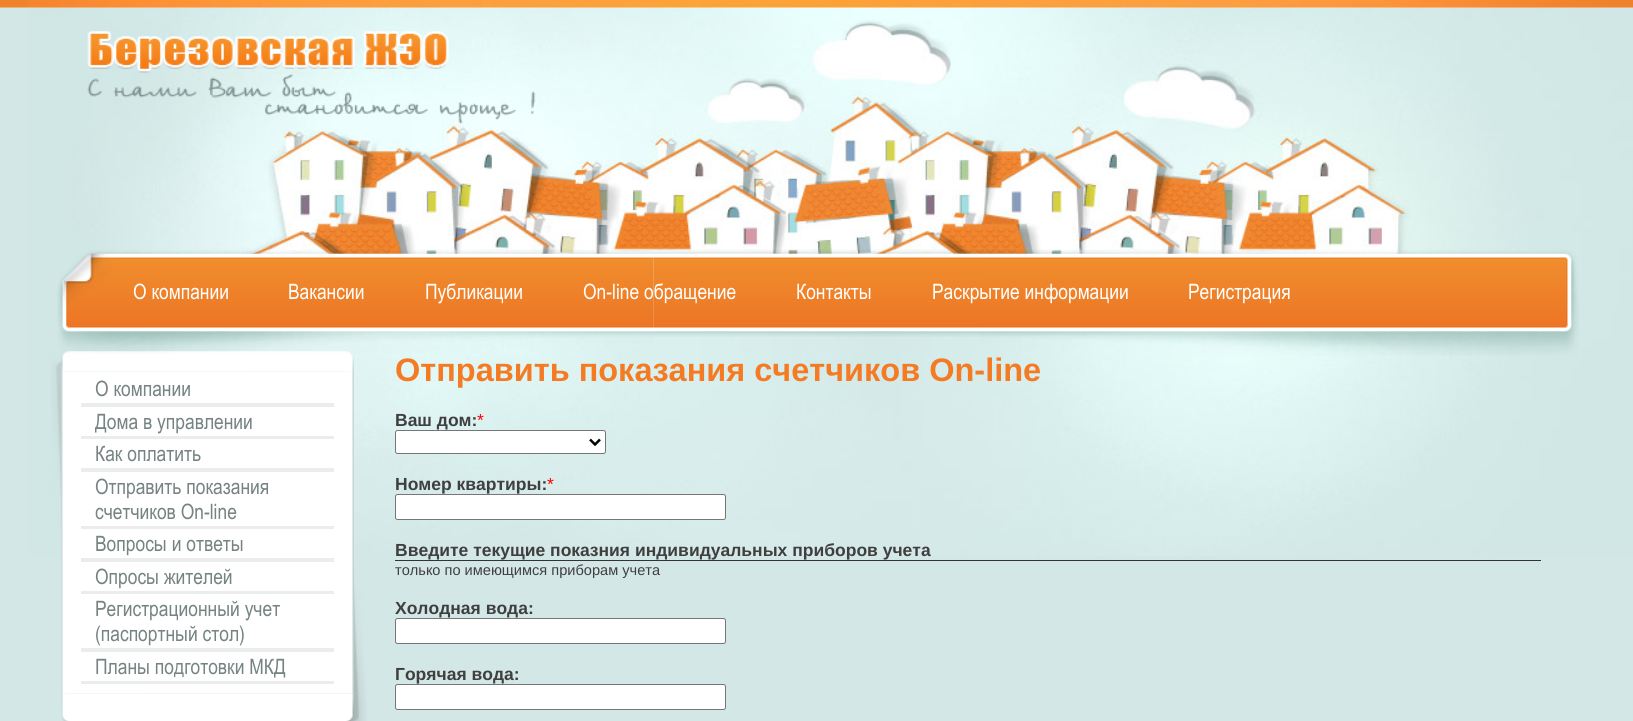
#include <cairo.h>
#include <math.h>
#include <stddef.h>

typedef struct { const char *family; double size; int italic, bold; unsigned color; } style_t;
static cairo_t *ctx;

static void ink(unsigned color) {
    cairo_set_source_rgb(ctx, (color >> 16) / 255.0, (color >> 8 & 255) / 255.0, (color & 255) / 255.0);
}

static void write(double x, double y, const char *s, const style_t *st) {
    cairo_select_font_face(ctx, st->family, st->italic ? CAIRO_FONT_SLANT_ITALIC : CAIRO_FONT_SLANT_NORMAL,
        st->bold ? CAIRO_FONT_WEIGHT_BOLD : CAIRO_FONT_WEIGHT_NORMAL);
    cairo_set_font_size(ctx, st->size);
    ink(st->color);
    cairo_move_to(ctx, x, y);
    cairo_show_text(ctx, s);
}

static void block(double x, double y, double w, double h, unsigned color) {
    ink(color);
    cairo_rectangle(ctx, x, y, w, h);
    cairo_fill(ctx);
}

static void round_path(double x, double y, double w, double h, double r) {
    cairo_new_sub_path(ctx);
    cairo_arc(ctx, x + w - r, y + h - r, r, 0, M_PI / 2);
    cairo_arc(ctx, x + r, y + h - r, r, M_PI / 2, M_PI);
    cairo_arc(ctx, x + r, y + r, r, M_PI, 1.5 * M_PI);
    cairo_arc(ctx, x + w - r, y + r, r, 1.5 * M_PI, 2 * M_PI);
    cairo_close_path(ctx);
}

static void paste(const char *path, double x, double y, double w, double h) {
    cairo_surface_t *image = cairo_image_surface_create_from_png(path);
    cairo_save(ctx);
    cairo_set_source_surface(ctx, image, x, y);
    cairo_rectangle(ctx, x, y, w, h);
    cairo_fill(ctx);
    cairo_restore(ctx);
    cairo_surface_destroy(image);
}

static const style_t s1 = {"Arial", 21.25, 0, 0, 0xffffff};
static const style_t s2 = {"Arial", 21.25, 0, 0, 0x758382};
static const style_t s3 = {"Liberation Sans", 32.5, 0, 1, 0xf47b23};
static const style_t s4 = {"Liberation Sans", 17.5, 0, 1, 0x3f3f3f};
static const style_t s5 = {"Liberation Sans", 17.5, 0, 0, 0xff0000};
static const style_t s6 = {"Liberation Sans", 14.6, 0, 0, 0x3f3f3f};

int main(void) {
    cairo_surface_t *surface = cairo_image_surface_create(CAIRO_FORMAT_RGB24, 1633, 721);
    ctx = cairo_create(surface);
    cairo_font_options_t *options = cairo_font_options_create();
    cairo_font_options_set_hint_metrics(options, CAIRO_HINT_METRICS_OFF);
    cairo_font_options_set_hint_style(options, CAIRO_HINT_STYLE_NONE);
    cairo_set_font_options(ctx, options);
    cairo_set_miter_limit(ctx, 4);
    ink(0xd3e7e6);
    cairo_paint(ctx);
    paste("pic1.png", 0, 0, 28, 8);
    paste("pic2.png", 28, 0, 1605, 556);
    paste("pic3.png", 87, 31, 362, 42);
    paste("pic4.png", 87, 74, 449, 50);
    paste("pic9.png", 51, 371, 303, 169);
    paste("pic10.png", 67, 565, 299, 129);
    paste("pic11.png", 61, 371, 293, 323);
    paste("pic8.png", 51, 351, 303, 21);
    paste("pic5.png", 57, 249, 597, 105);
    paste("pic6.png", 653, 249, 327, 88);
    paste("pic7.png", 980, 249, 599, 107);
    write(133, 299, "О компании", &s1);
    write(288, 299, "Вакансии", &s1);
    write(425, 299, "Публикации", &s1);
    write(583, 299, "On-line обращение", &s1);
    write(796, 299, "Контакты", &s1);
    write(932, 299, "Раскрытие информации", &s1);
    write(1188, 299, "Регистрация", &s1);
    block(81, 403, 253, 4, 0xeaedec);
    write(95, 396, "О компании", &s2);
    block(81, 436, 253, 3, 0xeaedec);
    write(95, 429, "Дома в управлении", &s2);
    block(81, 468, 253, 4, 0xeaedec);
    write(95, 461, "Как оплатить", &s2);
    block(81, 526, 253, 3, 0xeaedec);
    write(95, 494, "Отправить показания", &s2);
    write(95, 519, "счетчиков On-line", &s2);
    block(81, 558, 253, 4, 0xeaedec);
    write(95, 551, "Вопросы и ответы", &s2);
    block(81, 591, 253, 3, 0xeaedec);
    write(95, 584, "Опросы жителей", &s2);
    block(81, 648, 253, 4, 0xeaedec);
    write(95, 616, "Регистрационный учет", &s2);
    write(95, 641, "(паспортный стол)", &s2);
    block(81, 681, 253, 3, 0xeaedec);
    write(95, 674, "Планы подготовки МКД", &s2);
    paste("pic12.png", 61, 693, 306, 28);
    write(395, 381, "Отправить показания счетчиков On-line", &s3);
    write(395, 426, "Ваш дом:", &s4);
    write(477, 426, "*", &s5);
    ink(0xffffff);
    round_path(395.5, 430.5, 210, 23, 2);
    cairo_fill_preserve(ctx);
    ink(0x767676);
    cairo_set_line_width(ctx, 1);
    cairo_stroke(ctx);
    cairo_new_path(ctx);
    cairo_move_to(ctx, 590, 439.5);
    cairo_line_to(ctx, 595, 444.5);
    cairo_line_to(ctx, 600, 439.5);
    ink(0x000000);
    cairo_set_line_width(ctx, 2.5);
    cairo_stroke(ctx);
    write(395, 490, "Номер квартиры:", &s4);
    write(547, 490, "*", &s5);
    ink(0xffffff);
    round_path(395.5, 494.5, 330, 25, 2);
    cairo_fill_preserve(ctx);
    ink(0x767676);
    cairo_set_line_width(ctx, 1);
    cairo_stroke(ctx);
    write(395, 556, "Введите текущие показния индивидуальных приборов учета", &s4);
    block(395, 560, 1146, 1, 0x333333);
    write(395, 575, "только по имеющимся приборам учета", &s6);
    write(395, 614, "Холодная вода:", &s4);
    ink(0xffffff);
    round_path(395.5, 618.5, 330, 25, 2);
    cairo_fill_preserve(ctx);
    ink(0x767676);
    cairo_stroke(ctx);
    write(395, 680, "Горячая вода:", &s4);
    ink(0xffffff);
    round_path(395.5, 684.5, 330, 25, 2);
    cairo_fill_preserve(ctx);
    ink(0x767676);
    cairo_stroke(ctx);
    cairo_surface_write_to_png(surface, "screenshot.png");
    cairo_font_options_destroy(options);
    cairo_destroy(ctx);
    cairo_surface_destroy(surface);
    return 0;
}
